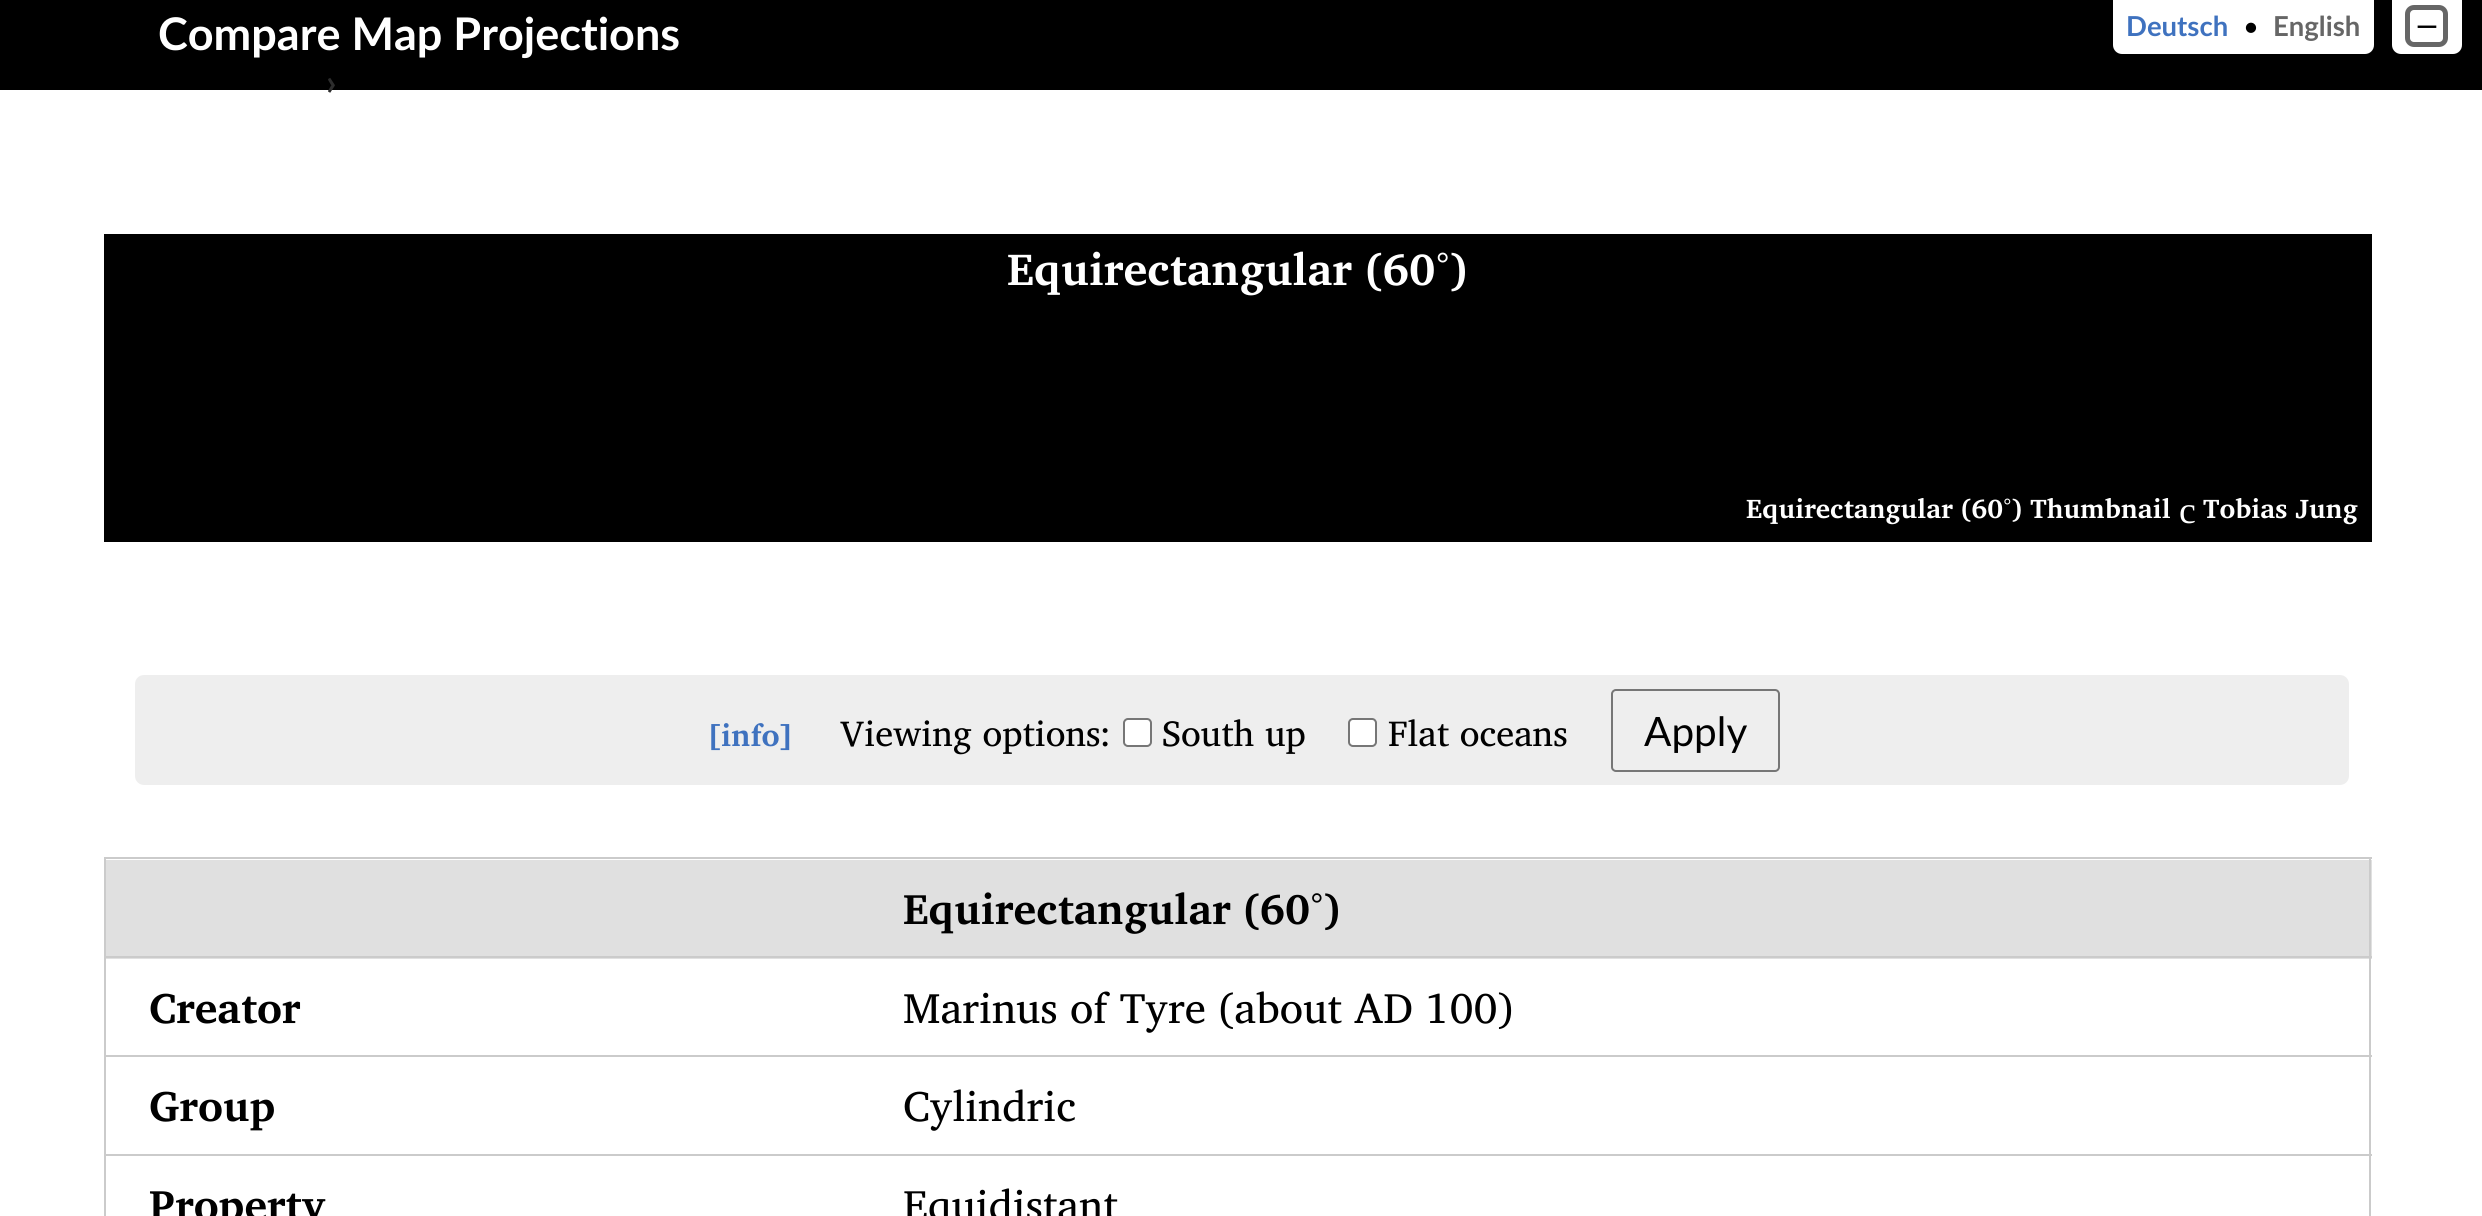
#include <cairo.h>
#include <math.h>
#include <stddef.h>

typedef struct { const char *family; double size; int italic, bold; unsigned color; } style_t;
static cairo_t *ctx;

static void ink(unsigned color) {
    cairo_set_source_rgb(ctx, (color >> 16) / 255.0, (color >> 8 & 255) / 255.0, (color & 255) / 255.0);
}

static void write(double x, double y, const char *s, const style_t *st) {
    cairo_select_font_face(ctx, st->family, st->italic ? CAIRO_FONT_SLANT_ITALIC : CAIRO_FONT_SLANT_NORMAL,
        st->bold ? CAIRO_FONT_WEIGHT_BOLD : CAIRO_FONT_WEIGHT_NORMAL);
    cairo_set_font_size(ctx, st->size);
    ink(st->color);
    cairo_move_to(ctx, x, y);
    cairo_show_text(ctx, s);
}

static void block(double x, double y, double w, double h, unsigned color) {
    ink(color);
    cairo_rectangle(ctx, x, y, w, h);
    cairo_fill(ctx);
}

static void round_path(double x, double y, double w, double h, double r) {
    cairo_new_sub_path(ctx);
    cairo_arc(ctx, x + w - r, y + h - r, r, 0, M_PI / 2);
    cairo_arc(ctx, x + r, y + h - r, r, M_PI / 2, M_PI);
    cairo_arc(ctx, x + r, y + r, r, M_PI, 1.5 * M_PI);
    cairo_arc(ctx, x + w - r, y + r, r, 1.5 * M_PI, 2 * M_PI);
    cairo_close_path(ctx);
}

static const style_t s1 = {"Lato", 45, 0, 1, 0xffffff};
static const style_t s2 = {"Lato", 27.5, 0, 1, 0x3f72bf};
static const style_t s3 = {"Lato", 27.5, 0, 0, 0x000000};
static const style_t s4 = {"Lato", 27.5, 0, 1, 0x666666};
static const style_t s5 = {"Lato", 27.5, 0, 1, 0x000000};
static const style_t s6 = {"Lato", 36, 0, 1, 0x2d2d2d};
static const style_t s7 = {"Charis SIL", 45, 0, 1, 0xffffff};
static const style_t s8 = {"Charis SIL", 27, 0, 1, 0xffffff};
static const style_t s9 = {"Liberation Serif", 38, 0, 0, 0xffffff};
static const style_t s10 = {"Charis SIL", 31, 0, 1, 0x3f72bf};
static const style_t s11 = {"Charis SIL", 36.25, 0, 0, 0x000000};
static const style_t s12 = {"Lato", 40.5, 0, 0, 0x000000};
static const style_t s13 = {"Charis SIL", 42.75, 0, 1, 0x000000};
static const style_t s14 = {"Charis SIL", 42.75, 0, 0, 0x000000};

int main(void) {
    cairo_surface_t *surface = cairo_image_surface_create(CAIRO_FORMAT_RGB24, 2482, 1216);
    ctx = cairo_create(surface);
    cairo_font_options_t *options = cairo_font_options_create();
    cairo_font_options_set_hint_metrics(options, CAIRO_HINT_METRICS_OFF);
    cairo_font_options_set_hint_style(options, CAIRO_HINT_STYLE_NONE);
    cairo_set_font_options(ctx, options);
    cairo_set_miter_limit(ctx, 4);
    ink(0xffffff);
    cairo_paint(ctx);
    block(0, 0, 2482, 90, 0x000000);
    write(158, 50, "Compare Map Projections", &s1);
    cairo_new_path(ctx);
    cairo_move_to(ctx, 2113, 0);
    cairo_line_to(ctx, 2374, 0);
    cairo_line_to(ctx, 2374, 45);
    cairo_curve_to(ctx, 2374, 50, 2370, 54, 2365, 54);
    cairo_line_to(ctx, 2122, 54);
    cairo_curve_to(ctx, 2117, 54, 2113, 50, 2113, 45);
    cairo_close_path(ctx);
    cairo_fill(ctx);
    write(2126, 36, "Deutsch", &s2);
    write(2243, 36, "•", &s3);
    write(2273, 36, "English", &s4);
    ink(0xffffff);
    cairo_new_path(ctx);
    cairo_move_to(ctx, 2392, 0);
    cairo_line_to(ctx, 2462, 0);
    cairo_line_to(ctx, 2462, 45);
    cairo_curve_to(ctx, 2462, 50, 2458, 54, 2453, 54);
    cairo_line_to(ctx, 2401, 54);
    cairo_curve_to(ctx, 2396, 54, 2392, 50, 2392, 45);
    cairo_close_path(ctx);
    cairo_fill(ctx);
    round_path(2407.5, 7.5, 38, 37, 6.5);
    ink(0x666666);
    cairo_set_line_width(ctx, 5);
    cairo_stroke(ctx);
    write(2416, 35, "—", &s5);
    write(326, 95, "›", &s6);
    block(104, 234, 2268, 308, 0x000000);
    write(1007, 285, "Equirectangular (60°)", &s7);
    write(1746, 518, "Equirectangular (60°) Thumbnail", &s8);
    write(2179, 523, "c", &s9);
    write(2203, 518, "Tobias Jung", &s8);
    ink(0xeeeeee);
    round_path(135, 675, 2214, 110, 9);
    cairo_fill(ctx);
    write(704, 746, "[info]", &s10);
    write(840, 746, "Viewing options:", &s11);
    ink(0xffffff);
    round_path(1124, 719, 27, 27, 4);
    cairo_fill_preserve(ctx);
    ink(0x767676);
    cairo_set_line_width(ctx, 2);
    cairo_stroke(ctx);
    write(1162, 746, "South up", &s11);
    ink(0xffffff);
    round_path(1349, 719, 27, 27, 4);
    cairo_fill_preserve(ctx);
    ink(0x767676);
    cairo_stroke(ctx);
    write(1388, 746, "Flat oceans", &s11);
    round_path(1612, 690, 167, 81, 4);
    ink(0x767676);
    cairo_stroke(ctx);
    write(1644, 746, "Apply", &s12);
    block(104, 857, 2268, 2, 0xcbcbcb);
    block(106, 860, 2266, 99, 0xe0e0e0);
    block(2369, 857, 2, 359, 0xcbcbcb);
    block(104, 857, 2, 359, 0xcbcbcb);
    block(104, 956, 2268, 2, 0xcbcbcb);
    write(903, 924, "Equirectangular (60°)", &s13);
    write(149, 1023, "Creator", &s13);
    block(104, 1055, 2268, 2, 0xcbcbcb);
    write(903, 1023, "Marinus of Tyre (about AD 100)", &s14);
    write(149, 1121, "Group", &s13);
    block(104, 1154, 2268, 2, 0xcbcbcb);
    write(903, 1121, "Cylindric", &s14);
    write(149, 1220, "Property", &s13);
    write(903, 1220, "Equidistant", &s14);
    cairo_surface_write_to_png(surface, "screenshot.png");
    cairo_font_options_destroy(options);
    cairo_destroy(ctx);
    cairo_surface_destroy(surface);
    return 0;
}
